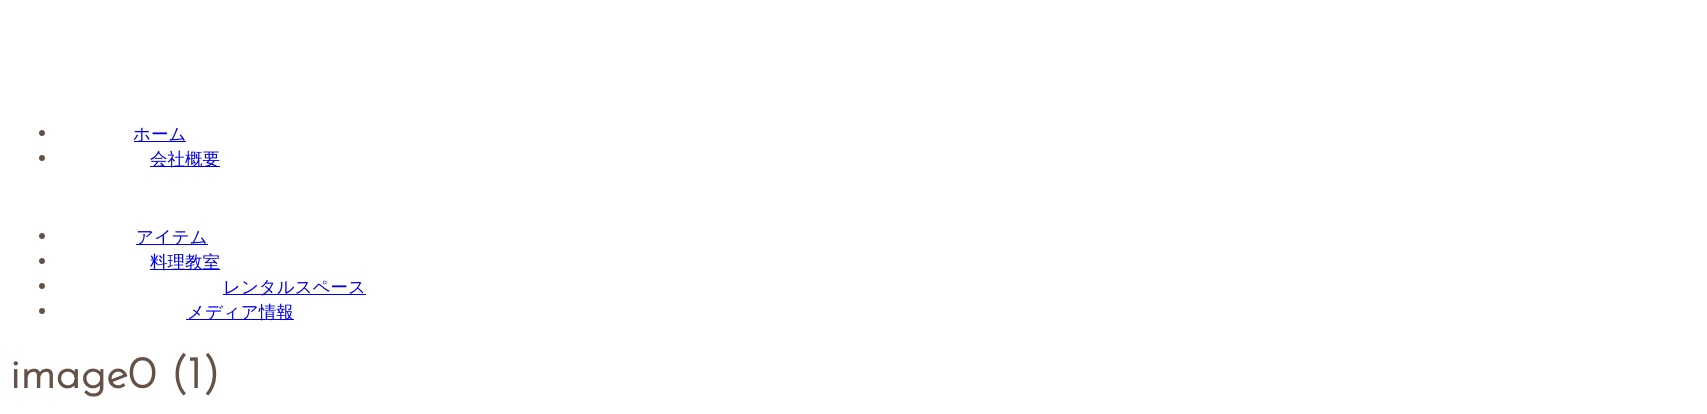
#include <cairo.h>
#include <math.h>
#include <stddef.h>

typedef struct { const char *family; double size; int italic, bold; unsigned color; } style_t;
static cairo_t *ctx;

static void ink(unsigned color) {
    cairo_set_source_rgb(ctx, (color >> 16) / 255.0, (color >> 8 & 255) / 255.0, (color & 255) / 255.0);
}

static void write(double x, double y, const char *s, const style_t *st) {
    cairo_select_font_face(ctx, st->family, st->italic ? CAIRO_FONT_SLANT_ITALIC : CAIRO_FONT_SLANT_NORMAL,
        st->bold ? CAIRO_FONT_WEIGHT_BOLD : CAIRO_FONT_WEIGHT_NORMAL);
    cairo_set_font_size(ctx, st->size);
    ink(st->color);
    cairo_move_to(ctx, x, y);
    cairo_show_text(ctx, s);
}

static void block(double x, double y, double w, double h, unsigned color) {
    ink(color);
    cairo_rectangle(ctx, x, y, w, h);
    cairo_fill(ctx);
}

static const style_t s1 = {"WenQuanYi Zen Hei Medium", 17.5, 0, 0, 0x0000ee};
static const style_t s2 = {"Josefin Sans", 45, 0, 1, 0x635245};

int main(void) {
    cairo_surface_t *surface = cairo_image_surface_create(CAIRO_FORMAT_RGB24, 1707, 414);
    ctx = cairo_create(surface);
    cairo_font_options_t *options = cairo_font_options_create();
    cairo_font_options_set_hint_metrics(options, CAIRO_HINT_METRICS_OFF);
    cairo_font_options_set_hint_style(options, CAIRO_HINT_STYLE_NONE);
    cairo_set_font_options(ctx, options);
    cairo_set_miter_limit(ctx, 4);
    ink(0xffffff);
    cairo_paint(ctx);
    ink(0x635245);
    cairo_arc(ctx, 42, 133, 3, 0, 2 * M_PI);
    cairo_fill(ctx);
    block(134, 141, 52, 1, 0x0000ee);
    write(133, 140, "ホーム", &s1);
    ink(0x635245);
    cairo_new_path(ctx);
    cairo_arc(ctx, 42, 158, 3, 0, 2 * M_PI);
    cairo_fill(ctx);
    block(150, 166, 70, 1, 0x0000ee);
    write(150, 165, "会社概要", &s1);
    ink(0x635245);
    cairo_new_path(ctx);
    cairo_arc(ctx, 42, 236, 3, 0, 2 * M_PI);
    cairo_fill(ctx);
    block(136, 244, 72, 1, 0x0000ee);
    write(136, 243, "アイテム", &s1);
    ink(0x635245);
    cairo_new_path(ctx);
    cairo_arc(ctx, 42, 261, 3, 0, 2 * M_PI);
    cairo_fill(ctx);
    block(150, 269, 70, 1, 0x0000ee);
    write(150, 268, "料理教室", &s1);
    ink(0x635245);
    cairo_new_path(ctx);
    cairo_arc(ctx, 42, 286, 3, 0, 2 * M_PI);
    cairo_fill(ctx);
    block(223, 294, 143, 1, 0x0000ee);
    write(223, 293, "レンタルスペース", &s1);
    ink(0x635245);
    cairo_new_path(ctx);
    cairo_arc(ctx, 42, 311, 3, 0, 2 * M_PI);
    cairo_fill(ctx);
    block(186, 319, 108, 1, 0x0000ee);
    write(187, 318, "メディア情報", &s1);
    write(10, 388, "image0 (1)", &s2);
    cairo_surface_write_to_png(surface, "screenshot.png");
    cairo_font_options_destroy(options);
    cairo_destroy(ctx);
    cairo_surface_destroy(surface);
    return 0;
}
